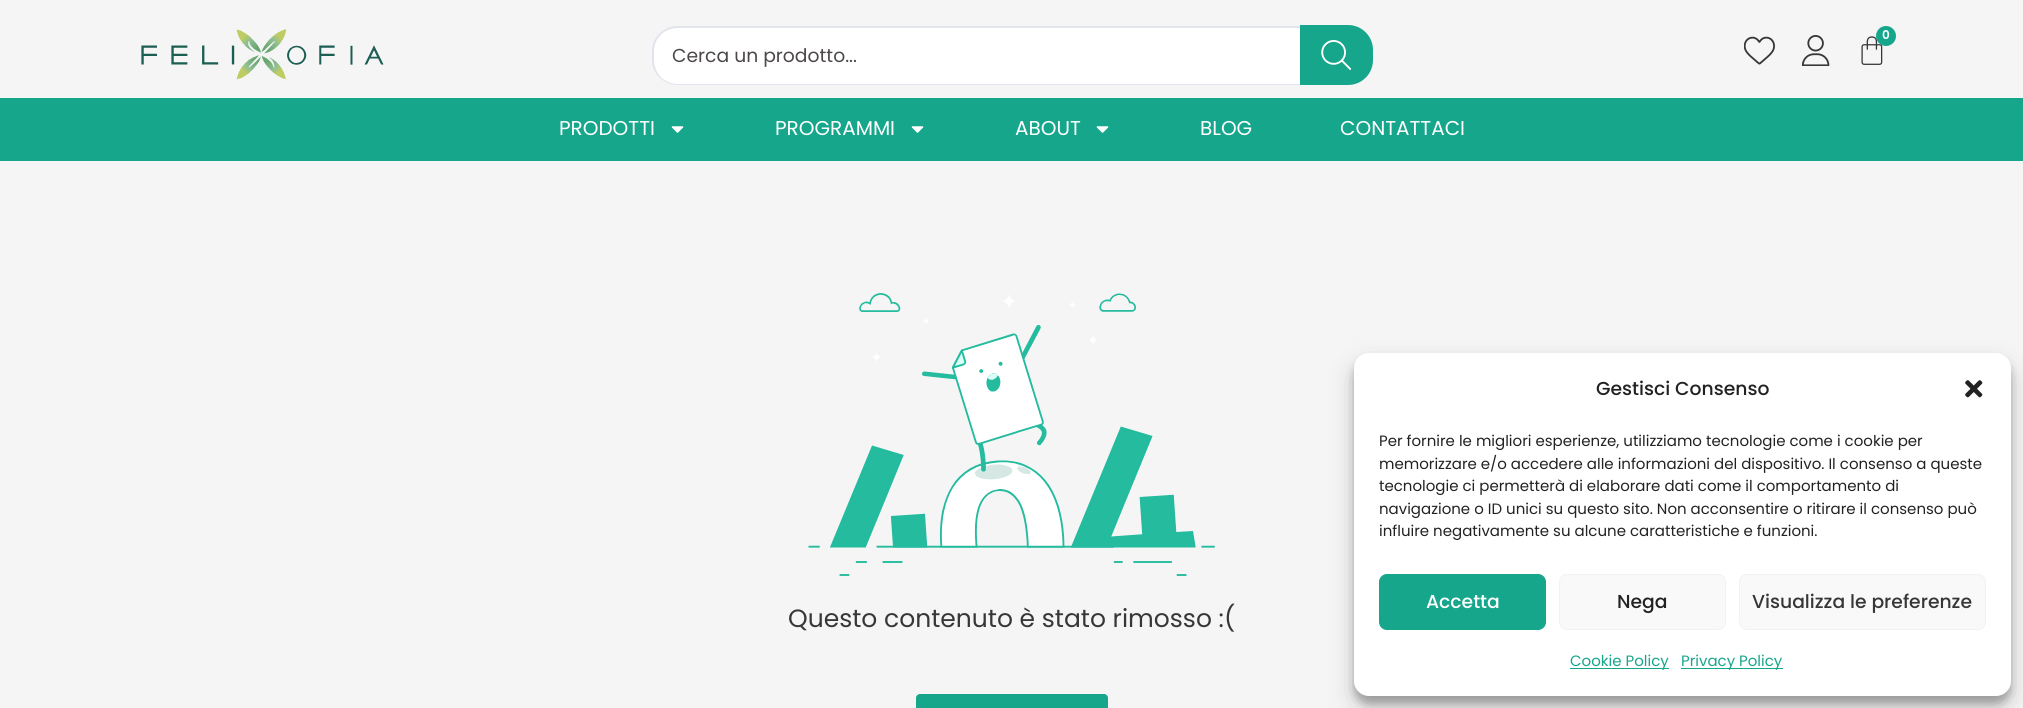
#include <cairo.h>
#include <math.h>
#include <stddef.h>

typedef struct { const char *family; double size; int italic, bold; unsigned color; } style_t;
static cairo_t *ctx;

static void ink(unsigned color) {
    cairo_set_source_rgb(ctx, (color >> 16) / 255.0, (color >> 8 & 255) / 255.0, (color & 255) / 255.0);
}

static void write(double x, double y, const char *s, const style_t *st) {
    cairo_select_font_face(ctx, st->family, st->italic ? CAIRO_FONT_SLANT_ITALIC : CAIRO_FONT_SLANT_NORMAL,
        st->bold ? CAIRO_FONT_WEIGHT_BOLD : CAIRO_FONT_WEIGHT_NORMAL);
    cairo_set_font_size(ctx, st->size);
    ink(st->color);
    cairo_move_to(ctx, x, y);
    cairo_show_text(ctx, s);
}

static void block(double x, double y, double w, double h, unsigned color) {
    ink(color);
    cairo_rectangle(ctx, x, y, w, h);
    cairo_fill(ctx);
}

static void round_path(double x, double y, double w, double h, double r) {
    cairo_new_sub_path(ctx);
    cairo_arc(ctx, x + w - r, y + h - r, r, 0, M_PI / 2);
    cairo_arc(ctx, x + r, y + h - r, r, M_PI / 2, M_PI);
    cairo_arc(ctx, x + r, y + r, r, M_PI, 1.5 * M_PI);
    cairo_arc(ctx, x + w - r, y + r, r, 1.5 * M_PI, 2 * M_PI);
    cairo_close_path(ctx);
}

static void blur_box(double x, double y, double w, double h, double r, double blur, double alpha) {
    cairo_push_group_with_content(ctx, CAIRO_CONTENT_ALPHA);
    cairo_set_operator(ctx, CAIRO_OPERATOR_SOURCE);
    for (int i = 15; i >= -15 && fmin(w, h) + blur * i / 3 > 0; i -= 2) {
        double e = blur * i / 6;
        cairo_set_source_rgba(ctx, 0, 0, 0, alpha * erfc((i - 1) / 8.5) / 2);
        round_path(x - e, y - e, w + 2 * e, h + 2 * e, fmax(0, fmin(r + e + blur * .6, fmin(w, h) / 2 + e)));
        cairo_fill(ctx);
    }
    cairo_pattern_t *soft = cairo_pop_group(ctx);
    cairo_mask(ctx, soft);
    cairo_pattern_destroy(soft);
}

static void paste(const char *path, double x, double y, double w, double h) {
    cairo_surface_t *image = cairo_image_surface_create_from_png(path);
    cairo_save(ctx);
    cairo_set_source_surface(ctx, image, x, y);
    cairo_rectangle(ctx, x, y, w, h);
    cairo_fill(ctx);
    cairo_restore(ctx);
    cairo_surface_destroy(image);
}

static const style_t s1 = {"Poppins SemiBold", 12, 0, 0, 0xffffff};
static const style_t s2 = {"Poppins", 18.75, 0, 0, 0x4d4848};
static const style_t s3 = {"Poppins", 20, 0, 0, 0xffffff};
static const style_t s4 = {"Poppins", 25, 0, 0, 0x373737};
static const style_t s5 = {"Poppins Medium", 18.75, 0, 0, 0x222222};
static const style_t s6 = {"Poppins", 15, 0, 0, 0x222222};
static const style_t s7 = {"Poppins Medium", 18.75, 0, 0, 0xffffff};
static const style_t s8 = {"Poppins Medium", 18.75, 0, 0, 0x373737};
static const style_t s9 = {"Poppins", 15, 0, 0, 0x16a68b};

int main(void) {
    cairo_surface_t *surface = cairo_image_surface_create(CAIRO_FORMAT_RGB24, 2023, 708);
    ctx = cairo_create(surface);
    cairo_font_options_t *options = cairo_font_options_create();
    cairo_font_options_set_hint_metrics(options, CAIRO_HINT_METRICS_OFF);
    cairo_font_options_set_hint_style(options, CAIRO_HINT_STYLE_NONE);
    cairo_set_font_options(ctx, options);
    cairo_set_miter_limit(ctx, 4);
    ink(0xf5f5f5);
    cairo_paint(ctx);
    paste("pic1.png", 141, 29, 243, 51);
    paste("pic2.png", 1861, 36, 22, 29);
    ink(0x16a68b);
    cairo_arc(ctx, 1886, 36, 10, 0, 2 * M_PI);
    cairo_fill(ctx);
    write(1882, 39, "0", &s1);
    paste("pic3.png", 1744, 36, 31, 29);
    paste("pic4.png", 1801, 35, 29, 31);
    cairo_new_path(ctx);
    cairo_move_to(ctx, 678, 28);
    cairo_line_to(ctx, 1300, 28);
    cairo_line_to(ctx, 1300, 84);
    cairo_line_to(ctx, 678, 84);
    cairo_curve_to(ctx, 664.5, 84, 654, 73.5, 654, 60);
    cairo_line_to(ctx, 654, 52);
    cairo_curve_to(ctx, 654, 38.5, 664.5, 28, 678, 28);
    cairo_close_path(ctx);
    cairo_fill(ctx);
    ink(0xe1e5eb);
    cairo_set_fill_rule(ctx, CAIRO_FILL_RULE_EVEN_ODD);
    cairo_new_path(ctx);
    cairo_move_to(ctx, 678, 26);
    cairo_line_to(ctx, 1300, 26);
    cairo_line_to(ctx, 1300, 85);
    cairo_line_to(ctx, 678, 85);
    cairo_curve_to(ctx, 664, 85, 652, 74, 652, 60);
    cairo_line_to(ctx, 652, 51);
    cairo_curve_to(ctx, 652, 37, 664, 26, 678, 26);
    cairo_close_path(ctx);
    cairo_move_to(ctx, 678, 28);
    cairo_line_to(ctx, 1300, 28);
    cairo_line_to(ctx, 1300, 84);
    cairo_line_to(ctx, 678, 84);
    cairo_curve_to(ctx, 664, 84, 654, 73, 654, 60);
    cairo_line_to(ctx, 654, 51);
    cairo_curve_to(ctx, 654, 38, 664, 28, 678, 28);
    cairo_close_path(ctx);
    cairo_fill(ctx);
    write(672, 62, "Cerca un prodotto...", &s2);
    ink(0x16a68b);
    cairo_new_path(ctx);
    cairo_move_to(ctx, 1301.5, 26.5);
    cairo_line_to(ctx, 1348, 26.5);
    cairo_curve_to(ctx, 1361, 26.5, 1371.5, 37, 1371.5, 50);
    cairo_line_to(ctx, 1371.5, 60);
    cairo_curve_to(ctx, 1371.5, 73, 1361, 83.5, 1348, 83.5);
    cairo_line_to(ctx, 1301.5, 83.5);
    cairo_close_path(ctx);
    cairo_fill_preserve(ctx);
    cairo_set_line_width(ctx, 3);
    cairo_stroke(ctx);
    paste("pic5.png", 1321, 40, 30, 30);
    block(0, 98, 2023, 63, 0x16a68b);
    write(559, 135, "PRODOTTI", &s3);
    paste("pic6.png", 671, 126, 13, 7);
    write(775, 135, "PROGRAMMI", &s3);
    paste("pic6.png", 911, 126, 13, 7);
    write(1015, 135, "ABOUT", &s3);
    paste("pic6.png", 1096, 126, 13, 7);
    write(1200, 135, "BLOG", &s3);
    write(1340, 135, "CONTATTACI", &s3);
    paste("pic7.png", 808, 293, 407, 283);
    write(788, 627, "Questo contenuto è stato rimosso :(", &s4);
    ink(0x16a68b);
    round_path(916, 694, 192, 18, 4);
    cairo_fill(ctx);
    ink(0x000000);
    blur_box(1354, 360, 657, 344, 15, 4, 0.23);
    blur_box(1354, 365, 657, 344, 15, 12.5, 0.19);
    ink(0xffffff);
    round_path(1354, 353, 657, 343, 15);
    cairo_fill(ctx);
    write(1596, 395, "Gestisci Consenso", &s5);
    paste("pic8.png", 1965, 380, 18, 18);
    write(1379, 446, "Per fornire le migliori esperienze, utilizziamo tecnologie come i cookie per", &s6);
    write(1379, 469, "memorizzare e/o accedere alle informazioni del dispositivo. Il consenso a queste", &s6);
    write(1379, 491, "tecnologie ci permetterà di elaborare dati come il comportamento di", &s6);
    write(1379, 514, "navigazione o ID unici su questo sito. Non acconsentire o ritirare il consenso può", &s6);
    write(1379, 536, "influire negativamente su alcune caratteristiche e funzioni.", &s6);
    ink(0x16a68b);
    round_path(1379.5, 574.5, 166, 55, 7.5);
    cairo_fill_preserve(ctx);
    cairo_set_line_width(ctx, 1);
    cairo_stroke(ctx);
    write(1426, 608, "Accetta", &s7);
    ink(0xf9f9f9);
    round_path(1559.5, 574.5, 166, 55, 7.5);
    cairo_fill_preserve(ctx);
    ink(0xf2f2f2);
    cairo_stroke(ctx);
    write(1617, 608, "Nega", &s5);
    ink(0xf9f9f9);
    round_path(1739.5, 574.5, 246, 55, 7.5);
    cairo_fill_preserve(ctx);
    ink(0xf2f2f2);
    cairo_stroke(ctx);
    write(1752, 608, "Visualizza le preferenze", &s8);
    block(1570, 668, 99, 1, 0x16a68b);
    write(1570, 666, "Cookie Policy", &s9);
    block(1681, 668, 102, 1, 0x16a68b);
    write(1681, 666, "Privacy Policy", &s9);
    cairo_surface_write_to_png(surface, "screenshot.png");
    cairo_font_options_destroy(options);
    cairo_destroy(ctx);
    cairo_surface_destroy(surface);
    return 0;
}
